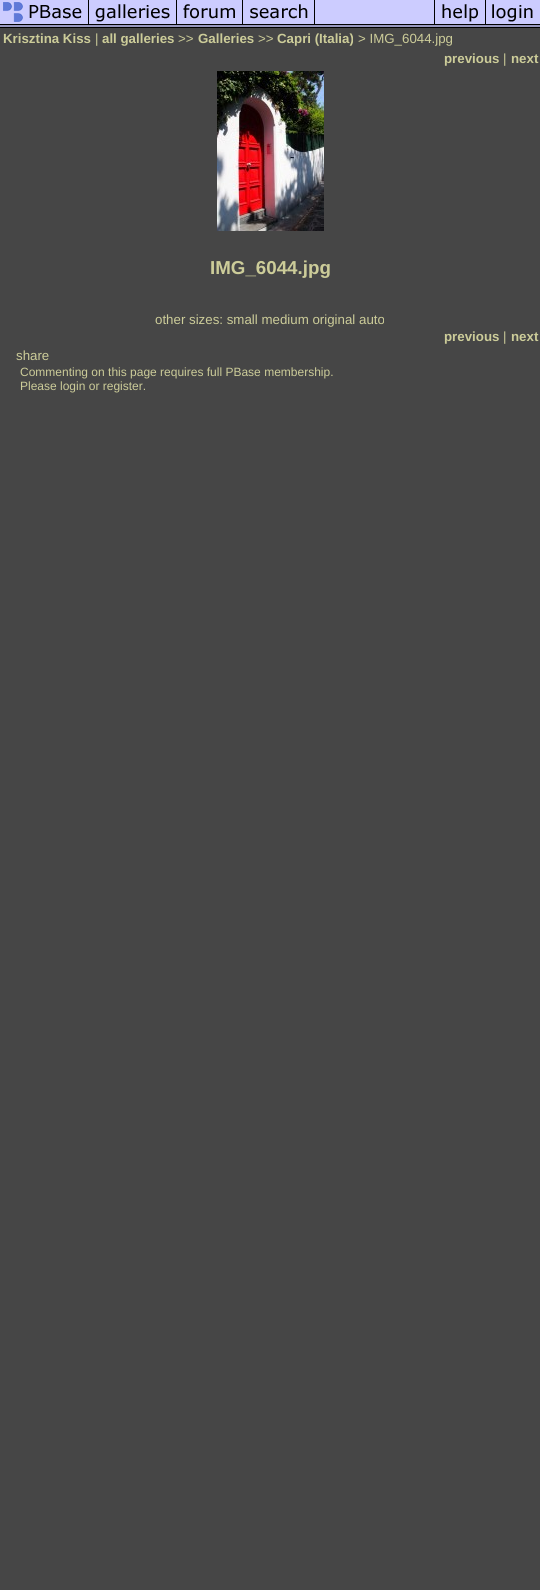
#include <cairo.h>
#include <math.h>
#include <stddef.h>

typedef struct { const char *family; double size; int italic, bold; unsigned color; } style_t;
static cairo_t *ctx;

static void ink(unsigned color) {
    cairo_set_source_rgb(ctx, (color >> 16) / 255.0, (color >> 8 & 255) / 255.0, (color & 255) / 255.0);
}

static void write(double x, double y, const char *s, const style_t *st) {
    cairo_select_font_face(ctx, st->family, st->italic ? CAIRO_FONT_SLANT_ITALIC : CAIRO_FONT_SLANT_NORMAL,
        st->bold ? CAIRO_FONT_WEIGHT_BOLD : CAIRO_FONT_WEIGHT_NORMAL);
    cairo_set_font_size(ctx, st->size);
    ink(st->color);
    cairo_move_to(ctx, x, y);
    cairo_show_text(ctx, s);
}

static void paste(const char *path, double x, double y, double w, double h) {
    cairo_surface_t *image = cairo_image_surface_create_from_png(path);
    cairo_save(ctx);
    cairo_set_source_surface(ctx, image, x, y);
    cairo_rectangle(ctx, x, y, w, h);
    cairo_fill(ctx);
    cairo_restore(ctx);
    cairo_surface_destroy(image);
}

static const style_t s1 = {"Liberation Sans", 13.3, 0, 1, 0xcccc99};
static const style_t s2 = {"Liberation Sans", 13.3, 0, 0, 0xcccc99};
static const style_t s3 = {"Liberation Sans", 18.75, 0, 1, 0xcccc99};
static const style_t s4 = {"Liberation Sans", 12, 0, 0, 0xcccc99};

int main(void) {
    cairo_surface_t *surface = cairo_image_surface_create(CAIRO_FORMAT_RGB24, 540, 1590);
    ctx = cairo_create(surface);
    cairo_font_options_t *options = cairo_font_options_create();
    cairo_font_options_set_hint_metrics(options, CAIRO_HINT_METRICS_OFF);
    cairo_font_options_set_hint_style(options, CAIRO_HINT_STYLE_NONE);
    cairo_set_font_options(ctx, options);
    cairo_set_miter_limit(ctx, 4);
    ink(0x464646);
    cairo_paint(ctx);
    paste("pic1.png", 0, 0, 89, 28);
    paste("pic2.png", 89, 0, 88, 28);
    paste("pic3.png", 177, 0, 66, 28);
    paste("pic4.png", 243, 0, 72, 28);
    paste("pic5.png", 315, 0, 119, 28);
    paste("pic6.png", 434, 0, 52, 28);
    paste("pic7.png", 486, 0, 54, 28);
    write(3, 43, "Krisztina Kiss", &s1);
    write(95, 43, "|", &s2);
    write(102, 43, "all galleries", &s1);
    write(178, 43, ">>", &s2);
    write(198, 43, "Galleries", &s1);
    write(258, 43, ">>", &s2);
    write(277, 43, "Capri (Italia)", &s1);
    write(358, 43, "> IMG_6044.jpg", &s2);
    write(444, 63, "previous", &s1);
    write(503, 63, "|", &s2);
    write(511, 63, "next", &s1);
    paste("pic8.png", 217, 71, 107, 160);
    write(210, 274, "IMG_6044.jpg", &s3);
    write(155, 324, "other sizes: small medium original auto", &s2);
    write(444, 341, "previous", &s1);
    write(503, 341, "|", &s2);
    write(511, 341, "next", &s1);
    write(16, 360, "share", &s2);
    write(20, 376, "Commenting on this page requires full PBase membership.", &s4);
    write(20, 390, "Please login or register.", &s4);
    cairo_surface_write_to_png(surface, "screenshot.png");
    cairo_font_options_destroy(options);
    cairo_destroy(ctx);
    cairo_surface_destroy(surface);
    return 0;
}
